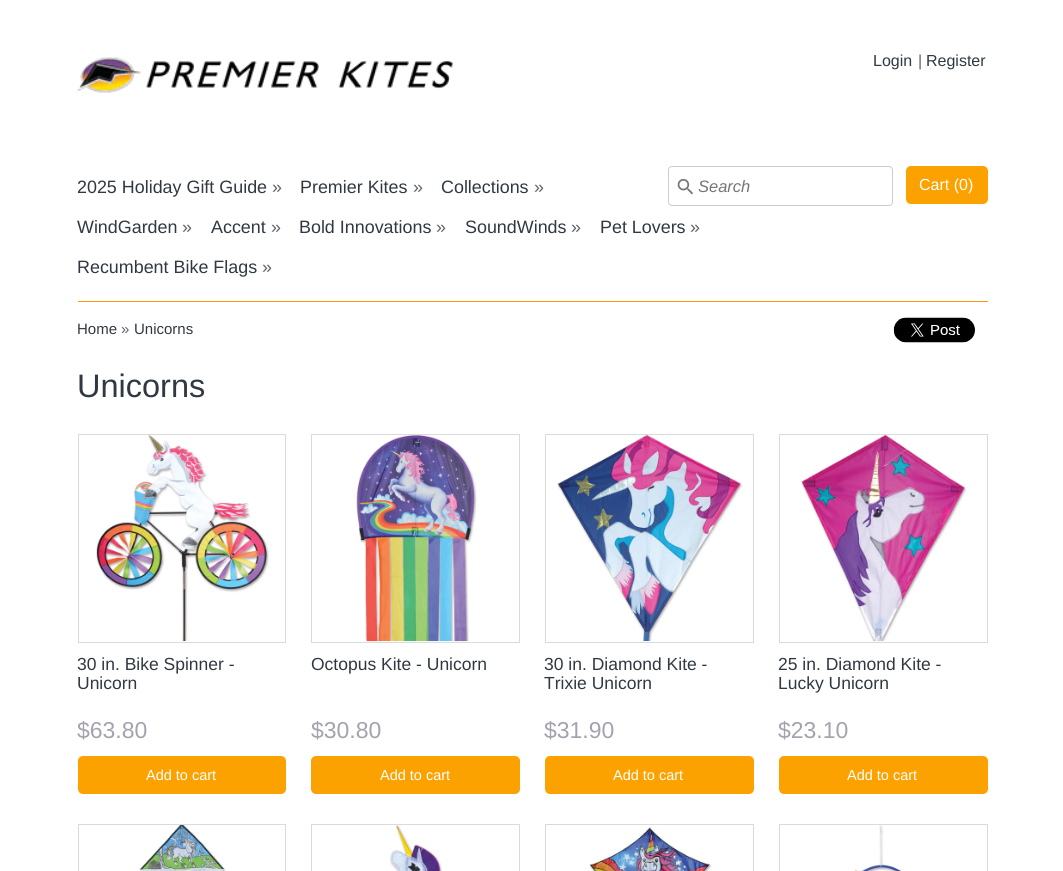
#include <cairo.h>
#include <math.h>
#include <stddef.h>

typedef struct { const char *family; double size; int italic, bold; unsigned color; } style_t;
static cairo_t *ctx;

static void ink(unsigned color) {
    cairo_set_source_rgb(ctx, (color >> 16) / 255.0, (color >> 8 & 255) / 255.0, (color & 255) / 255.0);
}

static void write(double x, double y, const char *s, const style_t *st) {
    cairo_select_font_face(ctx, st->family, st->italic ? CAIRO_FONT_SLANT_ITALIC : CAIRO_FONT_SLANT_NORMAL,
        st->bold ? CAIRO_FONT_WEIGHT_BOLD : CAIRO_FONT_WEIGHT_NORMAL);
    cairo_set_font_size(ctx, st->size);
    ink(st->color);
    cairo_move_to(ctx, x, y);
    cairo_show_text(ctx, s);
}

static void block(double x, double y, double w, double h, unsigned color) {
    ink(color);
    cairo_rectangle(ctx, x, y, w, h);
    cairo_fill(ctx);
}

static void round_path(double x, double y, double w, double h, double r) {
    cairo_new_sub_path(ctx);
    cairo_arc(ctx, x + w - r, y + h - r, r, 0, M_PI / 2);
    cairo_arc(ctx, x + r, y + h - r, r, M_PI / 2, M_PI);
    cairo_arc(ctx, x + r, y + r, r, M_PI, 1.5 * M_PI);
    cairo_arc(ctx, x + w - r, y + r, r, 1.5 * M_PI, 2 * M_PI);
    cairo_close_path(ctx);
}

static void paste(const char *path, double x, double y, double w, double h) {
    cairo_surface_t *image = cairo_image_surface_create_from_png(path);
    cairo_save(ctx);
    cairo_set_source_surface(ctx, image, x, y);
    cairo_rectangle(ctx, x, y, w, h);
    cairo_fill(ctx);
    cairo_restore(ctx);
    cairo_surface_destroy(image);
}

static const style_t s1 = {"Liberation Sans", 16, 0, 0, 0x303942};
static const style_t s2 = {"Liberation Sans", 16, 0, 0, 0x60606d};
static const style_t s3 = {"Liberation Sans", 17.9, 0, 0, 0x303942};
static const style_t s4 = {"Liberation Sans", 17.9, 0, 0, 0x60606d};
static const style_t s5 = {"Liberation Sans", 16.5, 1, 0, 0x757575};
static const style_t s6 = {"Liberation Sans", 16, 0, 0, 0xffffff};
static const style_t s7 = {"Liberation Sans", 15, 0, 0, 0x303942};
static const style_t s8 = {"Liberation Sans", 15, 0, 0, 0x60606d};
static const style_t s9 = {"Liberation Sans", 32.5, 0, 0, 0x303942};
static const style_t s10 = {"Liberation Sans", 17.5, 0, 0, 0x303942};
static const style_t s11 = {"Liberation Sans", 23, 0, 0, 0xa3a3af};
static const style_t s12 = {"Liberation Sans", 14.5, 0, 0, 0xffffff};

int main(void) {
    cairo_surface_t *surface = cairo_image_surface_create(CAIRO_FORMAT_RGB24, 1063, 871);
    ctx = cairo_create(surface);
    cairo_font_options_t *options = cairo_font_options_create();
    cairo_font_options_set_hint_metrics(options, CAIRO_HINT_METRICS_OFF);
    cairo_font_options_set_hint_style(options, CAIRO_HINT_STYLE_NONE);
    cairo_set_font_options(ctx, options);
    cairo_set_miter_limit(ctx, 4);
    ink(0xffffff);
    cairo_paint(ctx);
    paste("pic1.png", 77, 57, 376, 36);
    write(873, 66, "Login", &s1);
    write(918, 66, "|", &s2);
    write(926, 66, "Register", &s1);
    block(78, 301, 910, 1, 0xff9712);
    write(77, 193, "2025 Holiday Gift Guide", &s3);
    write(272, 193, "»", &s4);
    write(300, 193, "Premier Kites", &s3);
    write(413, 193, "»", &s4);
    write(441, 193, "Collections", &s3);
    write(534, 193, "»", &s4);
    write(77, 233, "WindGarden", &s3);
    write(182, 233, "»", &s4);
    write(211, 233, "Accent", &s3);
    write(271, 233, "»", &s4);
    write(299, 233, "Bold Innovations", &s3);
    write(436, 233, "»", &s4);
    write(465, 233, "SoundWinds", &s3);
    write(571, 233, "»", &s4);
    write(600, 233, "Pet Lovers", &s3);
    write(690, 233, "»", &s4);
    write(77, 273, "Recumbent Bike Flags", &s3);
    write(262, 273, "»", &s4);
    paste("pic2.png", 677, 178, 16, 17);
    round_path(668.5, 166.5, 224, 39, 3.5);
    ink(0xcccccc);
    cairo_set_line_width(ctx, 1);
    cairo_stroke(ctx);
    write(698, 192, "Search", &s5);
    ink(0xfca200);
    round_path(906, 166, 82, 38, 5);
    cairo_fill(ctx);
    write(919, 190, "Cart (0)", &s6);
    write(77, 334, "Home", &s7);
    write(121, 334, "»", &s8);
    write(134, 334, "Unicorns", &s7);
    paste("pic3.png", 893, 317, 82, 26);
    write(77, 397, "Unicorns", &s9);
    cairo_rectangle(ctx, 78.5, 434.5, 207, 208);
    ink(0xdadadb);
    cairo_stroke(ctx);
    paste("pic4.png", 96, 435, 173, 207);
    write(77, 670, "30 in. Bike Spinner -", &s10);
    write(77, 689, "Unicorn", &s10);
    write(77, 738, "$63.80", &s11);
    ink(0xfca200);
    round_path(78, 756, 208, 38, 5);
    cairo_fill(ctx);
    write(146, 780, "Add to cart", &s12);
    cairo_rectangle(ctx, 311.5, 434.5, 208, 208);
    ink(0xdadadb);
    cairo_stroke(ctx);
    paste("pic5.png", 356, 435, 121, 207);
    write(311, 670, "Octopus Kite - Unicorn", &s10);
    write(311, 738, "$30.80", &s11);
    ink(0xfca200);
    round_path(311, 756, 209, 38, 5);
    cairo_fill(ctx);
    write(380, 780, "Add to cart", &s12);
    cairo_rectangle(ctx, 545.5, 434.5, 208, 208);
    ink(0xdadadb);
    cairo_stroke(ctx);
    paste("pic6.png", 557, 435, 186, 207);
    write(544, 670, "30 in. Diamond Kite -", &s10);
    write(544, 689, "Trixie Unicorn", &s10);
    write(544, 738, "$31.90", &s11);
    ink(0xfca200);
    round_path(545, 756, 209, 38, 5);
    cairo_fill(ctx);
    write(613, 780, "Add to cart", &s12);
    cairo_rectangle(ctx, 779.5, 434.5, 208, 208);
    ink(0xdadadb);
    cairo_stroke(ctx);
    paste("pic7.png", 801, 435, 166, 207);
    write(778, 670, "25 in. Diamond Kite -", &s10);
    write(778, 689, "Lucky Unicorn", &s10);
    write(778, 738, "$23.10", &s11);
    ink(0xfca200);
    round_path(779, 756, 209, 38, 5);
    cairo_fill(ctx);
    write(847, 780, "Add to cart", &s12);
    cairo_rectangle(ctx, 78.5, 824.5, 207, 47);
    ink(0xdadadb);
    cairo_stroke(ctx);
    paste("pic8.png", 139, 825, 87, 46);
    cairo_rectangle(ctx, 311.5, 824.5, 208, 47);
    cairo_stroke(ctx);
    paste("pic9.png", 390, 825, 52, 46);
    cairo_rectangle(ctx, 545.5, 824.5, 208, 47);
    cairo_stroke(ctx);
    paste("pic10.png", 589, 827, 123, 44);
    cairo_rectangle(ctx, 779.5, 824.5, 208, 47);
    cairo_stroke(ctx);
    paste("pic11.png", 854, 825, 48, 46);
    cairo_surface_write_to_png(surface, "screenshot.png");
    cairo_font_options_destroy(options);
    cairo_destroy(ctx);
    cairo_surface_destroy(surface);
    return 0;
}
